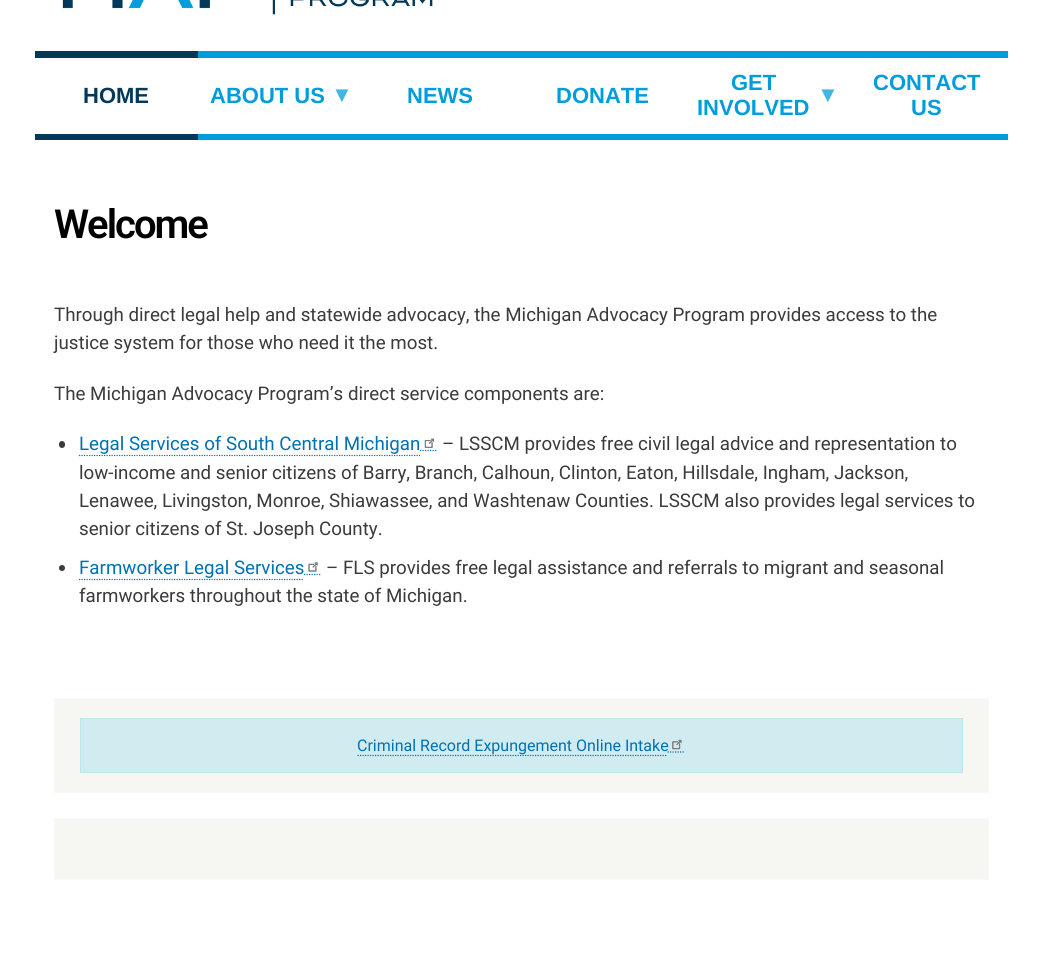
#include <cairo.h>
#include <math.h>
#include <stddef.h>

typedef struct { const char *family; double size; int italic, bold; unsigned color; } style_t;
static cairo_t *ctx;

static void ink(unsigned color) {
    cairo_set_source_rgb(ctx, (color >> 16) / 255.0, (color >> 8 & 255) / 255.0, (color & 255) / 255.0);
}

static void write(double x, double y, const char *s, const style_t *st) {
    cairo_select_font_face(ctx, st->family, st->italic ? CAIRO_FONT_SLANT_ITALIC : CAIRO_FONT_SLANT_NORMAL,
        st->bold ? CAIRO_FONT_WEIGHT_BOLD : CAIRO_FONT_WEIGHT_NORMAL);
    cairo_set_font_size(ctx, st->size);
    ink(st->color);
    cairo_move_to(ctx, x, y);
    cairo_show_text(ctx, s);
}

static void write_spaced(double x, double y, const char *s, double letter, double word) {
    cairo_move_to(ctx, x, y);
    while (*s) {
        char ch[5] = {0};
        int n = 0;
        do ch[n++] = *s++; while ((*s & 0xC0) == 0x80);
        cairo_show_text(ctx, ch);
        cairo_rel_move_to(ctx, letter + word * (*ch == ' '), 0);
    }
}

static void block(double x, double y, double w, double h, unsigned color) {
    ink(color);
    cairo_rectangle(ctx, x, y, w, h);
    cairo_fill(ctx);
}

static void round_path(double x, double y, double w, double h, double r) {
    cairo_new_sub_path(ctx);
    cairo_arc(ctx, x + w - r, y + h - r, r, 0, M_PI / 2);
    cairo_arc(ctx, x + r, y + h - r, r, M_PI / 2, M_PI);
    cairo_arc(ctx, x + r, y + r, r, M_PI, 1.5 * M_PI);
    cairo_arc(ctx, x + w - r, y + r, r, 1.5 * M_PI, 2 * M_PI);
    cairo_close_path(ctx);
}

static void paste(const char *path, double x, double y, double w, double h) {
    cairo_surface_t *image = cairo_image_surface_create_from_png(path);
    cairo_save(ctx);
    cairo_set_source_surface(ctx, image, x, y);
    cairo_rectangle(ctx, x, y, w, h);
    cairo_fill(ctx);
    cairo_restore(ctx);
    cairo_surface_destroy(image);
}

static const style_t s1 = {"Liberation Sans", 22, 0, 1, 0x01395a};
static const style_t s2 = {"Liberation Sans", 22, 0, 1, 0x009ddc};
static const style_t s3 = {"Liberation Sans", 22, 0, 1, 0x40b6e5};
static const style_t s4 = {"Roboto", 18.75, 0, 0, 0x3b3b3b};
static const style_t s5 = {"Roboto", 18.75, 0, 0, 0x0071b3};
static const style_t s6 = {"Roboto", 16, 0, 0, 0x0071b3};

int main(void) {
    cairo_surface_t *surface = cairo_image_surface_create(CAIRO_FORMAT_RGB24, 1042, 962);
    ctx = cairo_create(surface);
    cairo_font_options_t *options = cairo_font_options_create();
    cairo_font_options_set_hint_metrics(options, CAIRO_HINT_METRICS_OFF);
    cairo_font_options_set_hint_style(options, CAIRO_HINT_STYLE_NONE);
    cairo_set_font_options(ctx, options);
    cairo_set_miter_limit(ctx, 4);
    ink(0xffffff);
    cairo_paint(ctx);
    paste("pic1.png", 62, 0, 371, 15);
    block(35, 51, 163, 7, 0x01395a);
    block(35, 134, 163, 6, 0x01395a);
    write(83, 103, "HOME", &s1);
    block(198, 51, 810, 7, 0x009ddc);
    block(198, 134, 810, 6, 0x009ddc);
    write(210, 103, "ABOUT US", &s2);
    write(331, 102, "▼", &s3);
    write(407, 103, "NEWS", &s2);
    write(556, 103, "DONATE", &s2);
    write(731, 90, "GET", &s2);
    write(817, 102, "▼", &s3);
    write(697, 115, "INVOLVED", &s2);
    write(873, 90, "CONTACT", &s2);
    write(911, 115, "US", &s2);
    cairo_select_font_face(ctx, "Roboto SemiBold", CAIRO_FONT_SLANT_NORMAL, CAIRO_FONT_WEIGHT_NORMAL);
    cairo_set_font_size(ctx, 40);
    ink(0x000000);
    write_spaced(54, 238, "Welcome", -2, 0);
    write(54, 321, "Through direct legal help and statewide advocacy, the Michigan Advocacy Program provides access to the", &s4);
    write(54, 349, "justice system for those who need it the most.", &s4);
    write(54, 400, "The Michigan Advocacy Program’s direct service components are:", &s4);
    round_path(59, 441, 6, 7, 3);
    cairo_fill(ctx);
    write(79, 450, "Legal Services of South Central Michigan", &s5);
    cairo_new_path(ctx);
    cairo_move_to(ctx, 79, 455.5);
    cairo_line_to(ctx, 344, 455.5);
    cairo_set_line_width(ctx, 1.2);
    cairo_set_dash(ctx, (double[]){1.25, 1.25}, 2, 0);
    cairo_stroke(ctx);
    cairo_new_path(ctx);
    cairo_move_to(ctx, 344, 455.5);
    cairo_line_to(ctx, 420, 455.5);
    cairo_stroke(ctx);
    cairo_new_path(ctx);
    cairo_move_to(ctx, 420, 450.5);
    cairo_line_to(ctx, 437.5, 450.5);
    cairo_stroke(ctx);
    paste("pic2.png", 424, 438, 11, 10);
    write(442, 450, "– LSSCM provides free civil legal advice and representation to", &s4);
    write(79, 479, "low-income and senior citizens of Barry, Branch, Calhoun, Clinton, Eaton, Hillsdale, Ingham, Jackson,", &s4);
    write(79, 507, "Lenawee, Livingston, Monroe, Shiawassee, and Washtenaw Counties. LSSCM also provides legal services to", &s4);
    write(79, 535, "senior citizens of St. Joseph County.", &s4);
    cairo_new_path(ctx);
    cairo_arc(ctx, 62, 568, 3, 0, 2 * M_PI);
    cairo_fill(ctx);
    write(79, 574, "Farmworker Legal Services", &s5);
    cairo_new_path(ctx);
    cairo_move_to(ctx, 79, 579.5);
    cairo_line_to(ctx, 234, 579.5);
    cairo_stroke(ctx);
    cairo_new_path(ctx);
    cairo_move_to(ctx, 234, 579.5);
    cairo_line_to(ctx, 304, 579.5);
    cairo_stroke(ctx);
    cairo_new_path(ctx);
    cairo_move_to(ctx, 304, 574.5);
    cairo_line_to(ctx, 321, 574.5);
    cairo_stroke(ctx);
    paste("pic3.png", 308, 562, 10, 10);
    write(326, 574, "– FLS provides free legal assistance and referrals to migrant and seasonal", &s4);
    write(79, 602, "farmworkers throughout the state of Michigan.", &s4);
    ink(0xf6f6f2);
    cairo_rectangle(ctx, 54.5, 698.5, 934, 94);
    cairo_fill_preserve(ctx);
    ink(0xf9f9f9);
    cairo_set_line_width(ctx, 1);
    cairo_set_dash(ctx, NULL, 0, 0);
    cairo_stroke(ctx);
    ink(0xd1ecf1);
    cairo_rectangle(ctx, 80.5, 718.5, 882, 54);
    cairo_fill_preserve(ctx);
    ink(0xbee5eb);
    cairo_stroke(ctx);
    cairo_new_path(ctx);
    cairo_move_to(ctx, 357.5, 755.5);
    cairo_line_to(ctx, 625, 755.5);
    ink(0x0071b3);
    cairo_set_line_width(ctx, 1.2);
    cairo_set_dash(ctx, (double[]){1.25, 1.25}, 2, 0);
    cairo_stroke(ctx);
    cairo_new_path(ctx);
    cairo_move_to(ctx, 625, 755.5);
    cairo_line_to(ctx, 667.5, 755.5);
    cairo_move_to(ctx, 667.5, 752);
    cairo_line_to(ctx, 685, 752);
    cairo_stroke(ctx);
    write(357, 751, "Criminal Record Expungement Online Intake", &s6);
    paste("pic4.png", 672, 739, 10, 11);
    ink(0xf6f6f2);
    cairo_rectangle(ctx, 54.5, 818.5, 934, 61);
    cairo_fill_preserve(ctx);
    ink(0xf9f9f9);
    cairo_set_line_width(ctx, 1);
    cairo_set_dash(ctx, NULL, 0, 0);
    cairo_stroke(ctx);
    cairo_surface_write_to_png(surface, "screenshot.png");
    cairo_font_options_destroy(options);
    cairo_destroy(ctx);
    cairo_surface_destroy(surface);
    return 0;
}
